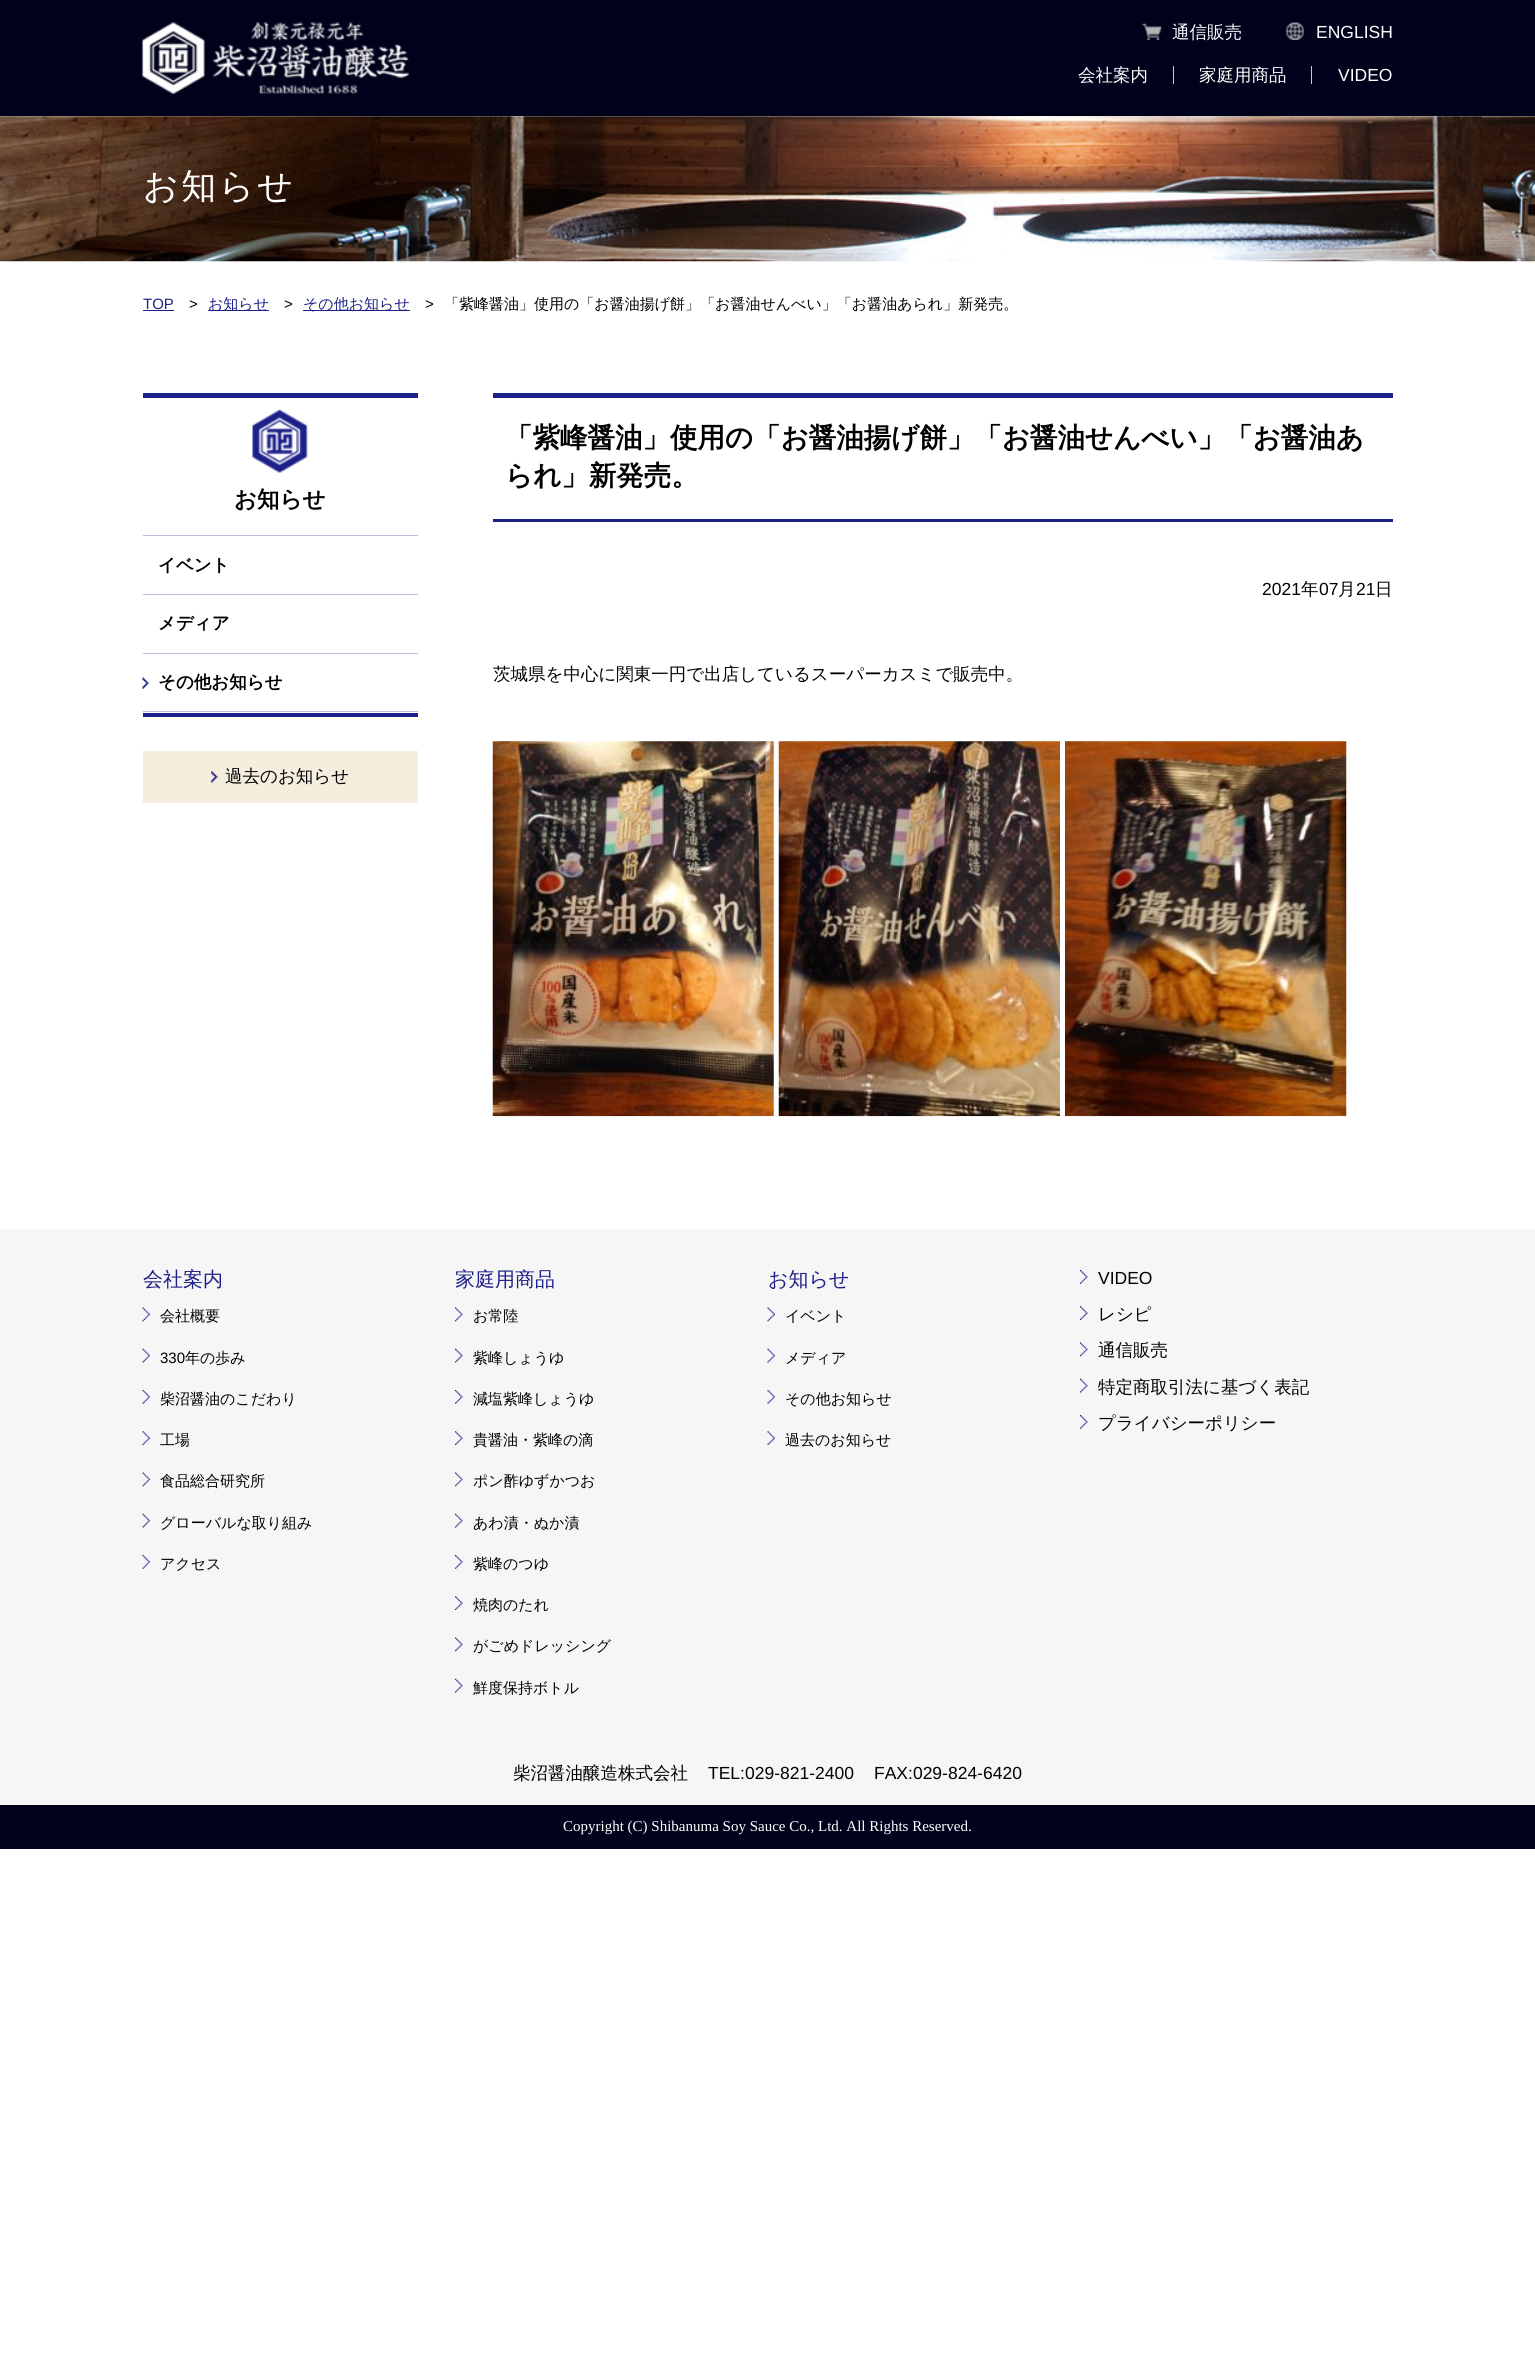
#include <cairo.h>
#include <math.h>
#include <stddef.h>

typedef struct { const char *family; double size; int italic, bold; unsigned color; } style_t;
static cairo_t *ctx;

static void ink(unsigned color) {
    cairo_set_source_rgb(ctx, (color >> 16) / 255.0, (color >> 8 & 255) / 255.0, (color & 255) / 255.0);
}

static void write(double x, double y, const char *s, const style_t *st) {
    cairo_select_font_face(ctx, st->family, st->italic ? CAIRO_FONT_SLANT_ITALIC : CAIRO_FONT_SLANT_NORMAL,
        st->bold ? CAIRO_FONT_WEIGHT_BOLD : CAIRO_FONT_WEIGHT_NORMAL);
    cairo_set_font_size(ctx, st->size);
    ink(st->color);
    cairo_move_to(ctx, x, y);
    cairo_show_text(ctx, s);
}

static void write_spaced(double x, double y, const char *s, double letter, double word) {
    cairo_move_to(ctx, x, y);
    while (*s) {
        char ch[5] = {0};
        int n = 0;
        do ch[n++] = *s++; while ((*s & 0xC0) == 0x80);
        cairo_show_text(ctx, ch);
        cairo_rel_move_to(ctx, letter + word * (*ch == ' '), 0);
    }
}

static void block(double x, double y, double w, double h, unsigned color) {
    ink(color);
    cairo_rectangle(ctx, x, y, w, h);
    cairo_fill(ctx);
}

static void paste(const char *path, double x, double y, double w, double h) {
    cairo_surface_t *image = cairo_image_surface_create_from_png(path);
    cairo_save(ctx);
    cairo_set_source_surface(ctx, image, x, y);
    cairo_rectangle(ctx, x, y, w, h);
    cairo_fill(ctx);
    cairo_restore(ctx);
    cairo_surface_destroy(image);
}

static const style_t s1 = {"WenQuanYi Zen Hei Medium", 17.5, 0, 0, 0xffffff};
static const style_t s2 = {"Liberation Sans", 17.5, 0, 0, 0xffffff};
static const style_t s3 = {"Liberation Sans", 15, 0, 0, 0x1d2088};
static const style_t s4 = {"Liberation Sans", 15, 0, 0, 0x000000};
static const style_t s5 = {"WenQuanYi Zen Hei Medium", 15, 0, 0, 0x1d2088};
static const style_t s6 = {"WenQuanYi Zen Hei Medium", 15, 0, 0, 0x000000};
static const style_t s7 = {"WenQuanYi Zen Hei", 22.5, 0, 1, 0x000000};
static const style_t s8 = {"WenQuanYi Zen Hei", 17.5, 0, 1, 0x000000};
static const style_t s9 = {"WenQuanYi Zen Hei Medium", 17.5, 0, 0, 0x000000};
static const style_t s10 = {"WenQuanYi Zen Hei", 27.5, 0, 1, 0x000000};
static const style_t s11 = {"Liberation Sans", 17.5, 0, 0, 0x000000};
static const style_t s12 = {"WenQuanYi Zen Hei Medium", 20, 0, 0, 0x1d2088};
static const style_t s13 = {"Liberation Serif", 15, 0, 0, 0xffffff};

int main(void) {
    cairo_surface_t *surface = cairo_image_surface_create(CAIRO_FORMAT_RGB24, 1535, 2380);
    ctx = cairo_create(surface);
    cairo_font_options_t *options = cairo_font_options_create();
    cairo_font_options_set_hint_metrics(options, CAIRO_HINT_METRICS_OFF);
    cairo_font_options_set_hint_style(options, CAIRO_HINT_STYLE_NONE);
    cairo_set_font_options(ctx, options);
    cairo_set_miter_limit(ctx, 4);
    ink(0xffffff);
    cairo_paint(ctx);
    block(0, 0, 1535, 116, 0x00011a);
    paste("pic1.png", 142, 22, 267, 72);
    paste("pic2.png", 1142, 23, 20, 17);
    write(1172, 38, "通信販売", &s1);
    paste("pic3.png", 1286, 22, 18, 18);
    write(1316, 38, "ENGLISH", &s2);
    write(1078, 81, "会社案内", &s1);
    block(1173, 66, 1, 18, 0xcccccc);
    write(1199, 81, "家庭用商品", &s1);
    block(1311, 66, 1, 18, 0xcccccc);
    write(1338, 81, "VIDEO", &s2);
    paste("pic4.png", 0, 116, 1535, 146);
    cairo_select_font_face(ctx, "WenQuanYi Zen Hei Medium", CAIRO_FONT_SLANT_NORMAL, CAIRO_FONT_WEIGHT_NORMAL);
    cairo_set_font_size(ctx, 35);
    write_spaced(143, 198, "お知らせ", 2.5, 0);
    write(143, 309, "TOP", &s3);
    block(143, 310, 31, 1, 0x1d2088);
    write(189, 309, ">", &s4);
    block(208, 310, 61, 1, 0x1d2088);
    write(208, 309, "お知らせ", &s5);
    write(284, 309, ">", &s4);
    block(303, 310, 107, 1, 0x1d2088);
    write(303, 309, "その他お知らせ", &s5);
    write(425, 309, ">", &s4);
    write(444, 309, "「紫峰醤油」使用の「お醤油揚げ餅」「お醤油せんべい」「お醤油あられ」新発売。", &s6);
    paste("pic5.png", 252, 410, 56, 63);
    block(143, 393, 275, 5, 0x1d2088);
    write(234, 507, "お知らせ", &s7);
    block(143, 713, 275, 4, 0x1d2088);
    block(143, 535, 275, 1, 0xbbbcdb);
    block(143, 594, 275, 1, 0xbbbcdb);
    write(158, 571, "イベント", &s8);
    block(143, 653, 275, 1, 0xbbbcdb);
    write(158, 629, "メディア", &s8);
    block(143, 711, 275, 1, 0xbbbcdb);
    paste("pic6.png", 142, 677, 7, 12);
    write(158, 688, "その他お知らせ", &s8);
    block(143, 751, 275, 52, 0xf5edde);
    paste("pic7.png", 211, 771, 7, 12);
    write(225, 782, "過去のお知らせ", &s9);
    block(493, 393, 900, 5, 0x1d2088);
    block(493, 519, 900, 3, 0x1d2088);
    write(505, 447, "「紫峰醤油」使用の「お醤油揚げ餅」「お醤油せんべい」「お醤油あ", &s10);
    write(505, 485, "られ」新発売。", &s10);
    write(1262, 595, "2021", &s11);
    write(1301, 595, "年", &s9);
    write(1319, 595, "07", &s11);
    write(1338, 595, "月", &s9);
    write(1356, 595, "21", &s11);
    write(1375, 595, "日", &s9);
    write(493, 680, "茨城県を中心に関東一円で出店しているスーパーカスミで販売中。", &s9);
    paste("pic8.png", 492, 741, 282, 376);
    paste("pic9.png", 778, 741, 282, 376);
    paste("pic10.png", 1065, 741, 282, 376);
    block(0, 1229, 1535, 576, 0xf6f6f6);
    write(143, 1286, "会社案内", &s12);
    paste("pic11.png", 142, 1307, 8, 15);
    write(160, 1321, "会社概要", &s6);
    paste("pic12.png", 142, 1348, 8, 15);
    write(160, 1363, "330", &s4);
    write(185, 1363, "年の歩み", &s6);
    paste("pic13.png", 142, 1390, 8, 14);
    write(160, 1404, "柴沼醤油のこだわり", &s6);
    paste("pic14.png", 142, 1431, 8, 14);
    write(160, 1445, "工場", &s6);
    paste("pic11.png", 142, 1472, 8, 15);
    write(160, 1486, "食品総合研究所", &s6);
    paste("pic12.png", 142, 1513, 8, 15);
    write(160, 1528, "グローバルな取り組み", &s6);
    paste("pic15.png", 142, 1555, 8, 14);
    write(160, 1569, "アクセス", &s6);
    write(455, 1286, "家庭用商品", &s12);
    paste("pic16.png", 455, 1307, 8, 15);
    write(473, 1321, "お常陸", &s6);
    paste("pic17.png", 455, 1348, 8, 15);
    write(473, 1363, "紫峰しょうゆ", &s6);
    paste("pic18.png", 455, 1390, 8, 14);
    write(473, 1404, "減塩紫峰しょうゆ", &s6);
    paste("pic19.png", 455, 1431, 8, 14);
    write(473, 1445, "貴醤油・紫峰の滴", &s6);
    paste("pic16.png", 455, 1472, 8, 15);
    write(473, 1486, "ポン酢ゆずかつお", &s6);
    paste("pic17.png", 455, 1513, 8, 15);
    write(473, 1528, "あわ漬・ぬか漬", &s6);
    paste("pic20.png", 455, 1555, 8, 14);
    write(473, 1569, "紫峰のつゆ", &s6);
    paste("pic19.png", 455, 1596, 8, 14);
    write(473, 1610, "焼肉のたれ", &s6);
    paste("pic16.png", 455, 1637, 8, 15);
    write(473, 1651, "がごめドレッシング", &s6);
    paste("pic17.png", 455, 1678, 8, 15);
    write(473, 1693, "鮮度保持ボトル", &s6);
    write(768, 1286, "お知らせ", &s12);
    paste("pic11.png", 767, 1307, 8, 15);
    write(785, 1321, "イベント", &s6);
    paste("pic12.png", 767, 1348, 8, 15);
    write(785, 1363, "メディア", &s6);
    paste("pic13.png", 767, 1390, 8, 14);
    write(785, 1404, "その他お知らせ", &s6);
    paste("pic14.png", 767, 1431, 8, 14);
    write(785, 1445, "過去のお知らせ", &s6);
    paste("pic21.png", 1080, 1270, 8, 14);
    write(1098, 1284, "VIDEO", &s11);
    paste("pic22.png", 1080, 1306, 8, 14);
    write(1098, 1320, "レシピ", &s9);
    paste("pic23.png", 1080, 1342, 8, 15);
    write(1098, 1356, "通信販売", &s9);
    paste("pic24.png", 1080, 1378, 8, 15);
    write(1098, 1393, "特定商取引法に基づく表記", &s9);
    paste("pic21.png", 1080, 1415, 8, 14);
    write(1098, 1429, "プライバシーポリシー", &s9);
    write(513, 1779, "柴沼醤油醸造株式会社", &s9);
    write(708, 1779, "TEL:029-821-2400", &s11);
    write(874, 1779, "FAX:029-824-6420", &s11);
    block(0, 1805, 1535, 44, 0x00011a);
    write(563, 1831, "Copyright (C) Shibanuma Soy Sauce Co., Ltd. All Rights Reserved.", &s13);
    cairo_surface_write_to_png(surface, "screenshot.png");
    cairo_font_options_destroy(options);
    cairo_destroy(ctx);
    cairo_surface_destroy(surface);
    return 0;
}
